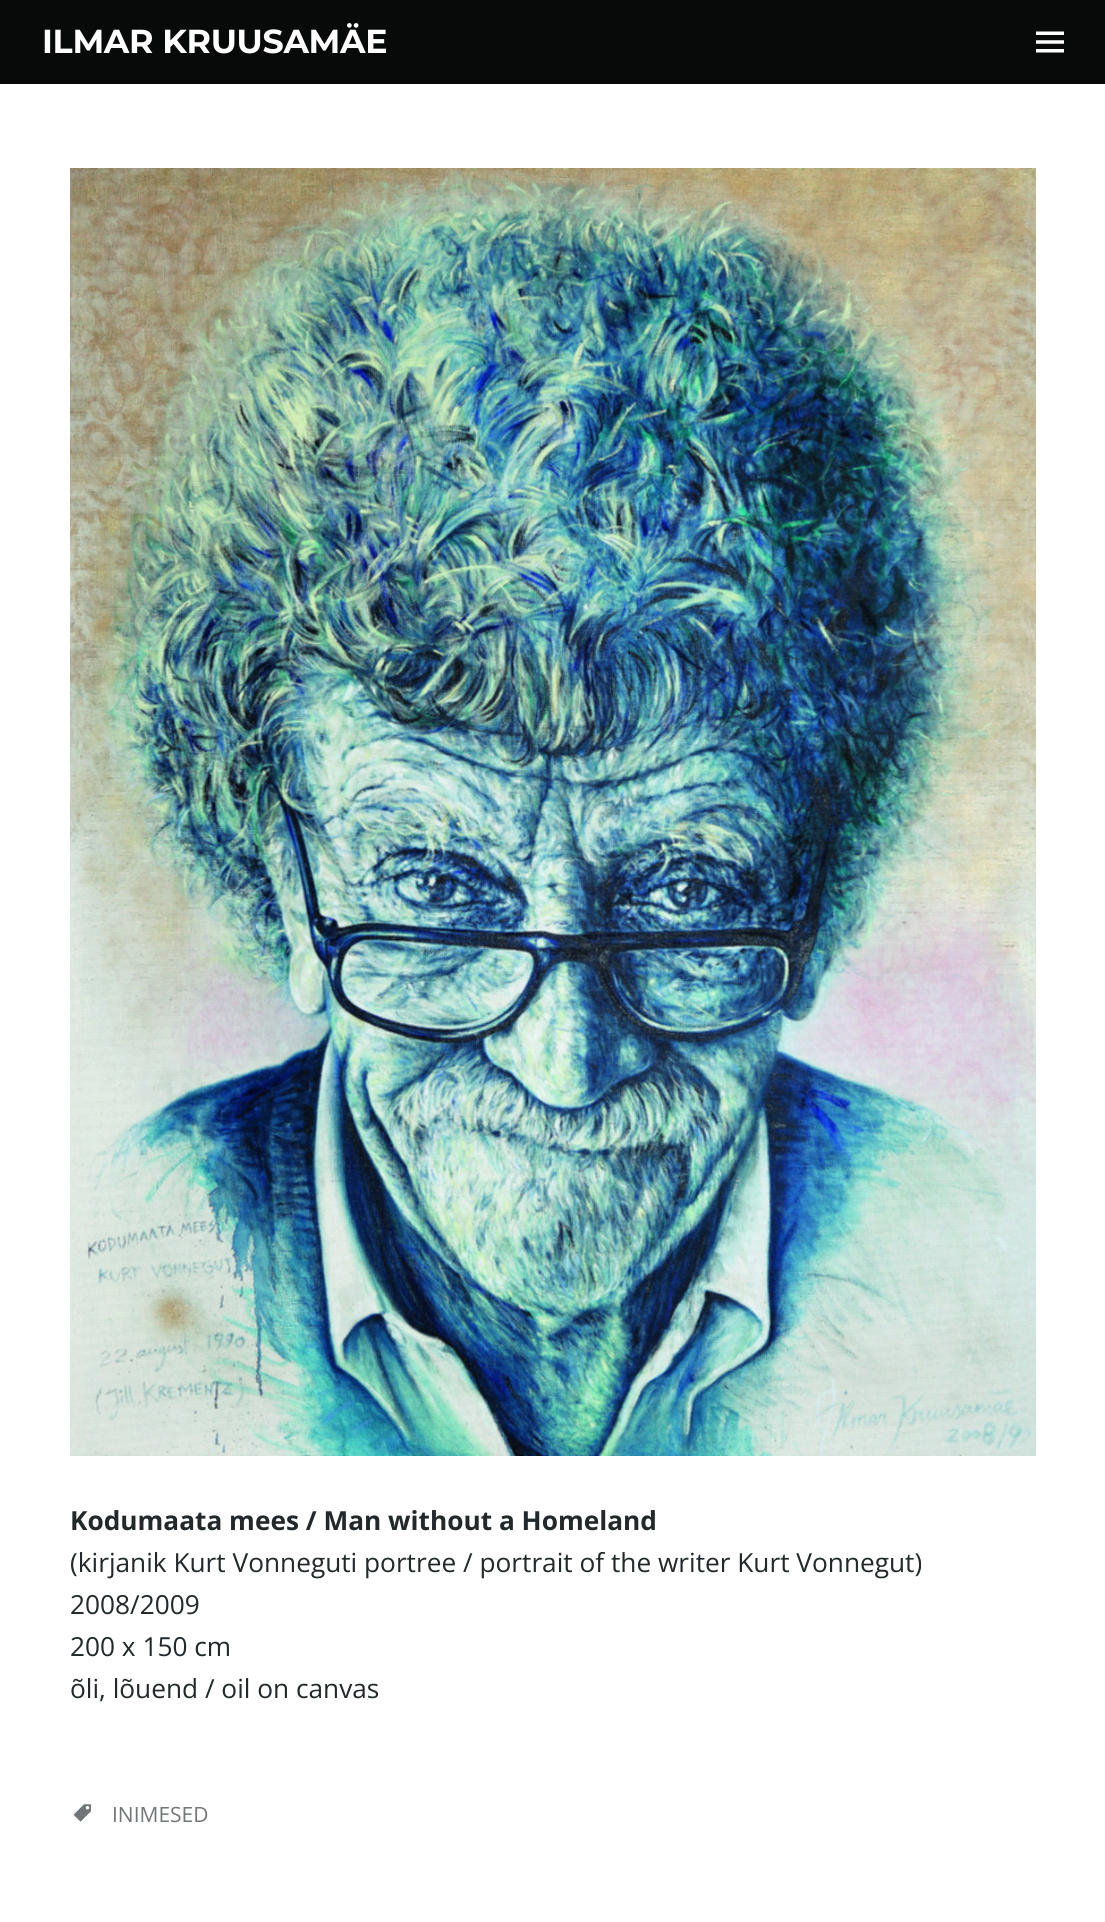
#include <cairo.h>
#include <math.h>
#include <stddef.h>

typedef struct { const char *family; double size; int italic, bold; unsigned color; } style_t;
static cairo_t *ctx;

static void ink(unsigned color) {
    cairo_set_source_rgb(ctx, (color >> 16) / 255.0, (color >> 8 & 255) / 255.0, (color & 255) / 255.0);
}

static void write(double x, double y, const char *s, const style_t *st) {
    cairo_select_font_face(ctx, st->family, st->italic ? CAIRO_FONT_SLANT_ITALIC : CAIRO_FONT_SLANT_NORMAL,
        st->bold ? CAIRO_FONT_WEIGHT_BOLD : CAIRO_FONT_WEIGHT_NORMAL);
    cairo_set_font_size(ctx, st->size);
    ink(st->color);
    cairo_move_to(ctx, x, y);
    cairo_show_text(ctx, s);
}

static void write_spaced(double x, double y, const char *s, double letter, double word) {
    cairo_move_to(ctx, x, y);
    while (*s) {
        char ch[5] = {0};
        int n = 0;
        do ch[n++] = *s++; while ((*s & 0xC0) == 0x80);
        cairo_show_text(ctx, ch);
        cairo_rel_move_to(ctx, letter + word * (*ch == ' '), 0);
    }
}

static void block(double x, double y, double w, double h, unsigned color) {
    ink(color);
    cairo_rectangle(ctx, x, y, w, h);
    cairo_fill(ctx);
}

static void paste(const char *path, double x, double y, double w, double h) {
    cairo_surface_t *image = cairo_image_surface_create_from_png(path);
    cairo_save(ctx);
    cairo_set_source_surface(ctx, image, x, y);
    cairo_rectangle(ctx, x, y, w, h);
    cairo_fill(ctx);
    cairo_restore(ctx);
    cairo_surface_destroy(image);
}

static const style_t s1 = {"Open Sans", 26.25, 0, 1, 0x23292b};
static const style_t s2 = {"Open Sans", 26.25, 0, 0, 0x23292b};
static const style_t s3 = {"Open Sans", 21, 0, 0, 0x737678};

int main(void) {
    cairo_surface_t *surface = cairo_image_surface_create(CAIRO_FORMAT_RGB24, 1105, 1922);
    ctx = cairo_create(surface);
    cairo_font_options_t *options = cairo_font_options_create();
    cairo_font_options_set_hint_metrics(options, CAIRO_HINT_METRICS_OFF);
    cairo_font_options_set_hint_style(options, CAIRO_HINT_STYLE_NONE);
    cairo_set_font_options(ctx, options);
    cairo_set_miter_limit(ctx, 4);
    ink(0xffffff);
    cairo_paint(ctx);
    block(0, 0, 1105, 84, 0x080a0a);
    cairo_select_font_face(ctx, "Montserrat", CAIRO_FONT_SLANT_NORMAL, CAIRO_FONT_WEIGHT_BOLD);
    cairo_set_font_size(ctx, 33.25);
    ink(0xffffff);
    write_spaced(42, 53, "ILMAR KRUUSAMÄE", -0.3, 0);
    paste("pic1.png", 1036, 31, 28, 22);
    paste("pic2.png", 70, 168, 966, 1288);
    write(70, 1530, "Kodumaata mees / Man without a Homeland", &s1);
    write(70, 1572, "(kirjanik Kurt Vonneguti portree / portrait of the writer Kurt Vonnegut)", &s2);
    write(70, 1614, "2008/2009", &s2);
    write(70, 1656, "200 x 150 cm", &s2);
    write(70, 1698, "õli, lõuend / oil on canvas", &s2);
    paste("pic3.png", 73, 1804, 18, 18);
    write(112, 1822, "INIMESED", &s3);
    cairo_surface_write_to_png(surface, "screenshot.png");
    cairo_font_options_destroy(options);
    cairo_destroy(ctx);
    cairo_surface_destroy(surface);
    return 0;
}
